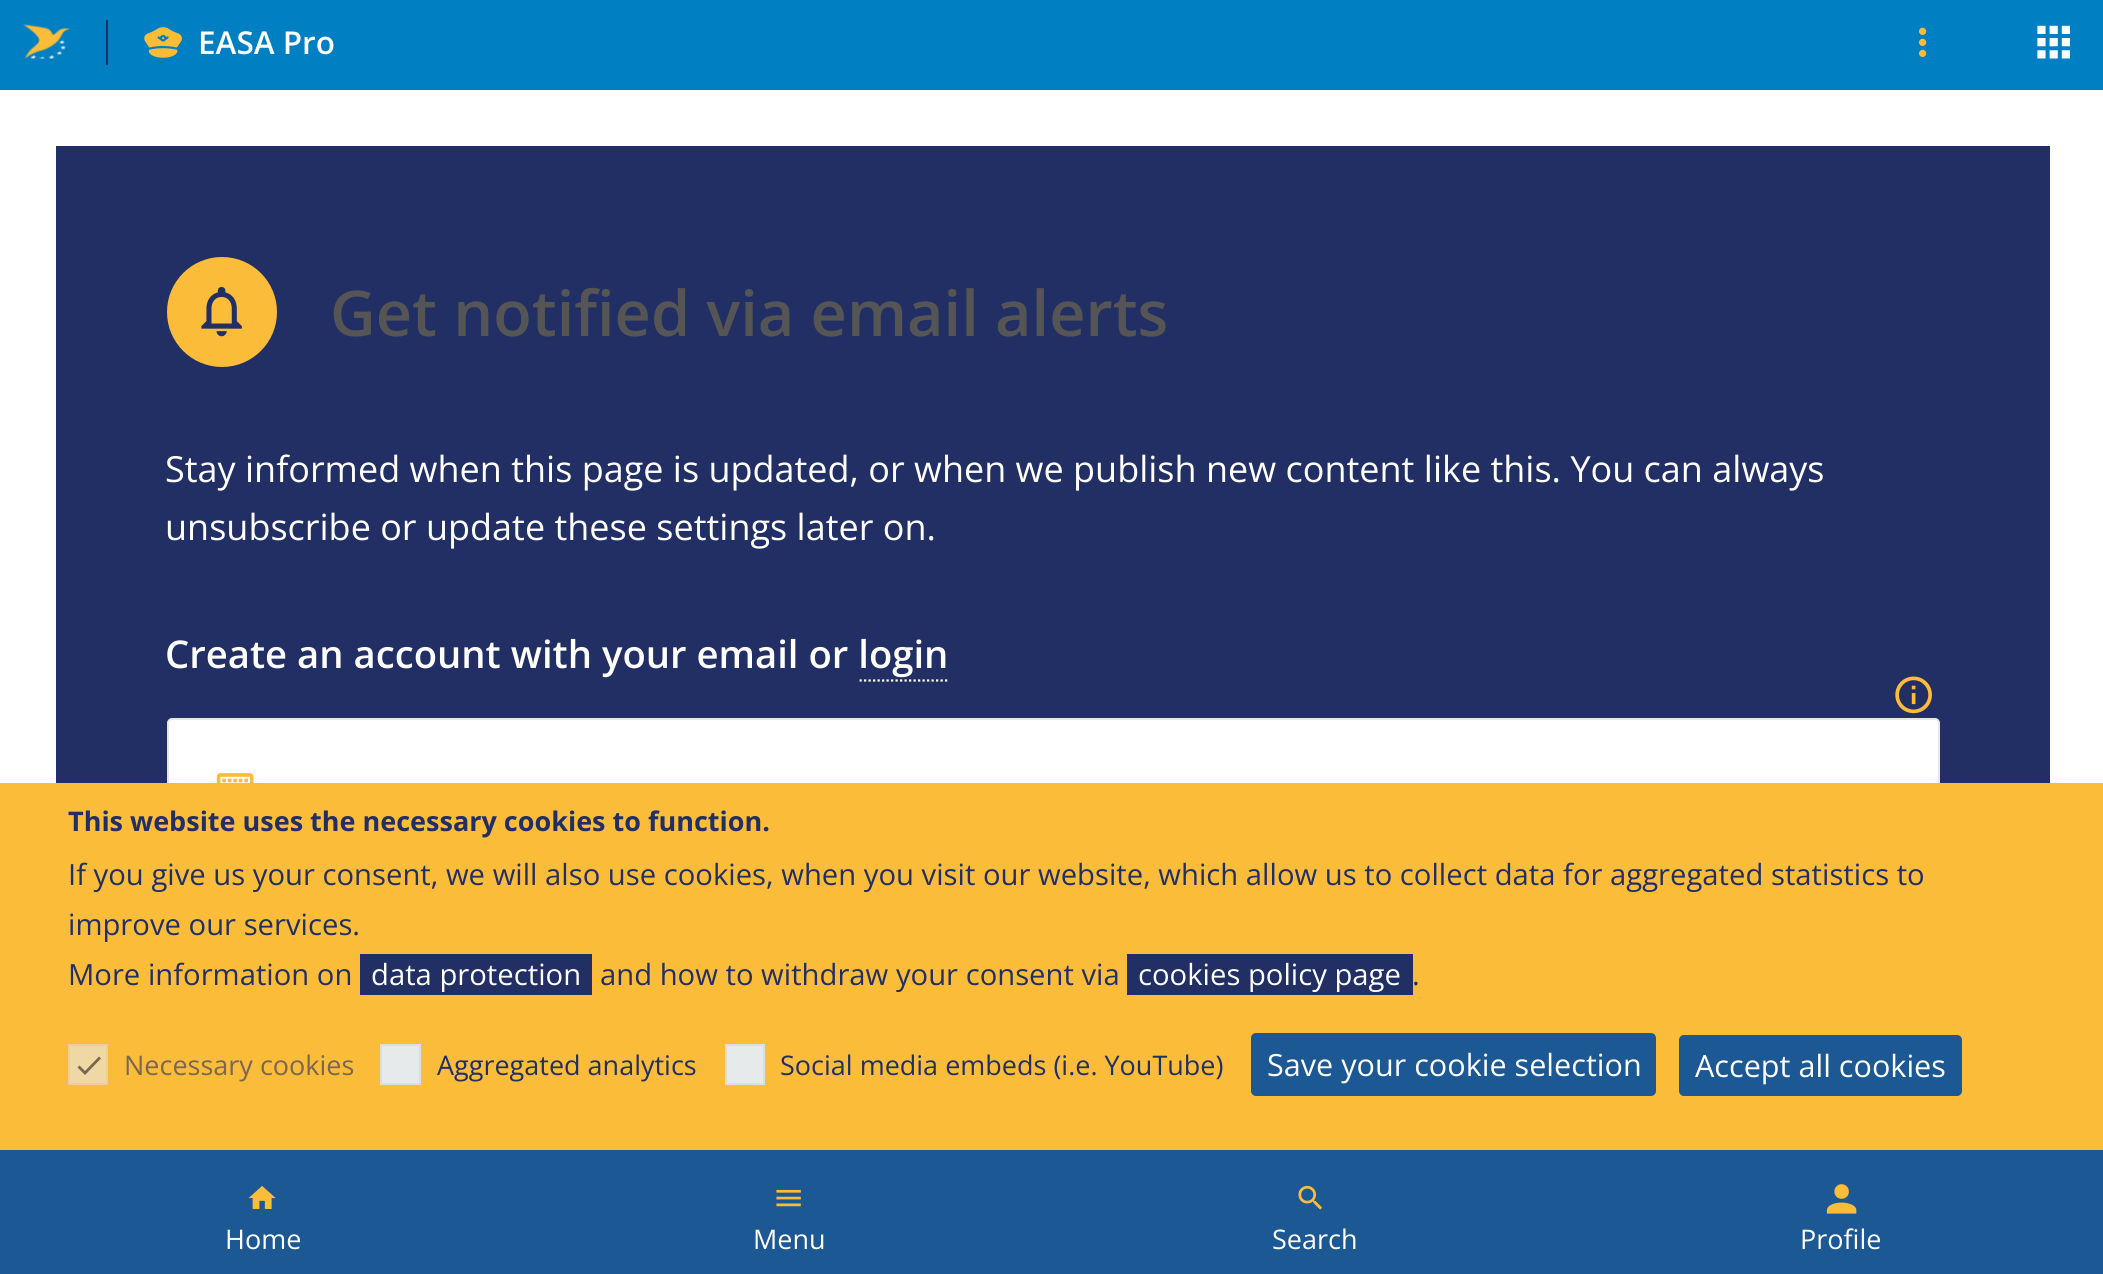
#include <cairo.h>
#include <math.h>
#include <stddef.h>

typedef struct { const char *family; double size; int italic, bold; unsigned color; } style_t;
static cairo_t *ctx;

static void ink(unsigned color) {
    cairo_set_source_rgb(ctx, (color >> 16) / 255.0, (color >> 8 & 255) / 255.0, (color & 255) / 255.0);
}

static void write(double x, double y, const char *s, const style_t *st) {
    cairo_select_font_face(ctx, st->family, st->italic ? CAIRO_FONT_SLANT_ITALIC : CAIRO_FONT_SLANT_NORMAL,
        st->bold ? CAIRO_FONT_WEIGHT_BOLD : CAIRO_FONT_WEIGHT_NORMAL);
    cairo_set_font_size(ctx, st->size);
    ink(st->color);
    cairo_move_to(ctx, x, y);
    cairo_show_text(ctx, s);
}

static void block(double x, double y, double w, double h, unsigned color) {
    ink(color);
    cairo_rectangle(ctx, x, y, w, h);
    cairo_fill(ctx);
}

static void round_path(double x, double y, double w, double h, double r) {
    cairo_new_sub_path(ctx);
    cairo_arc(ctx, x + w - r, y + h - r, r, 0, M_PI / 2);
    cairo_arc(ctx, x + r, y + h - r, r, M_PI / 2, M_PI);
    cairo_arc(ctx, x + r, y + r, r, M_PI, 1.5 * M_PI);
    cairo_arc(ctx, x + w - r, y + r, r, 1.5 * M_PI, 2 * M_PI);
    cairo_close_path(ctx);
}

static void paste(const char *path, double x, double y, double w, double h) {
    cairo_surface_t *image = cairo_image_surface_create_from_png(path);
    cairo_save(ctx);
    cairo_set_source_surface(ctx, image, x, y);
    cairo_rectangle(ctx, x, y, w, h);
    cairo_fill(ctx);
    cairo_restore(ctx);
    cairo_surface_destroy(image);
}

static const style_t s1 = {"Open Sans SemiBold", 31.5, 0, 0, 0xffffff};
static const style_t s2 = {"Open Sans", 27, 0, 0, 0xffffff};
static const style_t s3 = {"Open Sans SemiBold", 63, 0, 0, 0x555555};
static const style_t s4 = {"Open Sans", 36, 0, 0, 0xffffff};
static const style_t s5 = {"Open Sans SemiBold", 38.25, 0, 0, 0xffffff};
static const style_t s6 = {"Open Sans", 27, 0, 1, 0x222f64};
static const style_t s7 = {"Open Sans", 29.25, 0, 0, 0x222f64};
static const style_t s8 = {"Open Sans", 29.25, 0, 0, 0xffffff};
static const style_t s9 = {"Open Sans", 27, 0, 0, 0x796753};
static const style_t s10 = {"Open Sans", 27, 0, 0, 0x222f64};
static const style_t s11 = {"Open Sans", 30.6, 0, 0, 0xffffff};

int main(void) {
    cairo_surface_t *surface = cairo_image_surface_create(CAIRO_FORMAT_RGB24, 2103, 1274);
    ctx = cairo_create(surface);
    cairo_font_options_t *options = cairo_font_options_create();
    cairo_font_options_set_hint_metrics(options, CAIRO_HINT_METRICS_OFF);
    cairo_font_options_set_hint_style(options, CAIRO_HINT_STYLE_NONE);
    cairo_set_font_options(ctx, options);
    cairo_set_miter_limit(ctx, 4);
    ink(0xffffff);
    cairo_paint(ctx);
    block(0, 0, 2103, 90, 0x007fc2);
    paste("pic1.png", 23, 24, 47, 35);
    block(0, 1150, 2103, 124, 0x1c5893);
    block(106, 20, 2, 45, 0x222f64);
    paste("pic2.png", 144, 27, 38, 31);
    write(198, 54, "EASA Pro", &s1);
    paste("pic3.png", 248, 1186, 28, 23);
    write(225, 1249, "Home", &s2);
    paste("pic4.png", 776, 1189, 25, 18);
    write(753, 1249, "Menu", &s2);
    paste("pic5.png", 1298, 1185, 24, 25);
    write(1272, 1249, "Search", &s2);
    paste("pic6.png", 1826, 1184, 31, 30);
    write(1800, 1249, "Profile", &s2);
    paste("pic7.png", 2037, 25, 33, 34);
    paste("pic8.png", 1919, 27, 8, 30);
    block(56, 146, 1994, 637, 0x222f64);
    ink(0xfbbc39);
    cairo_arc(ctx, 222, 312, 55, 0, 2 * M_PI);
    cairo_fill(ctx);
    paste("pic9.png", 201, 286, 41, 51);
    write(330, 336, "Get notified via email alerts", &s3);
    write(165, 482, "Stay informed when this page is updated, or when we publish new content like this. You can always", &s4);
    write(165, 540, "unsubscribe or update these settings later on.", &s4);
    write(165, 668, "Create an account with your email or login", &s5);
    cairo_new_path(ctx);
    cairo_move_to(ctx, 859.5, 680.5);
    cairo_line_to(ctx, 949.5, 680.5);
    cairo_set_line_width(ctx, 2.2);
    cairo_set_dash(ctx, (double[]){2.25, 2.25}, 2, 0);
    cairo_stroke(ctx);
    paste("pic10.png", 1895, 676, 37, 38);
    round_path(168, 719, 1771, 133, 4);
    cairo_fill_preserve(ctx);
    ink(0xe7e7e7);
    cairo_set_line_width(ctx, 2);
    cairo_set_dash(ctx, NULL, 0, 0);
    cairo_stroke(ctx);
    paste("pic11.png", 216, 773, 38, 10);
    block(0, 783, 2103, 367, 0xfbbc39);
    write(68, 831, "This website uses the necessary cookies to function.", &s6);
    write(68, 885, "If you give us your consent, we will also use cookies, when you visit our website, which allow us to collect data for aggregated statistics to", &s7);
    write(68, 935, "improve our services.", &s7);
    write(68, 985, "More information on", &s7);
    block(360, 954, 232, 41, 0x222f64);
    write(371, 985, "data protection", &s8);
    write(600, 985, "and how to withdraw your consent via", &s7);
    block(1127, 954, 286, 41, 0x222f64);
    write(1138, 985, "cookies policy page", &s8);
    write(1412, 985, ".", &s7);
    ink(0xefd8a4);
    cairo_rectangle(ctx, 69, 1045, 38, 39);
    cairo_fill_preserve(ctx);
    ink(0xe9d09b);
    cairo_stroke(ctx);
    write(124, 1075, "Necessary cookies", &s9);
    cairo_new_path(ctx);
    cairo_move_to(ctx, 101, 1058.5);
    cairo_line_to(ctx, 85, 1075);
    cairo_line_to(ctx, 77.5, 1067.5);
    cairo_line_to(ctx, 79.5, 1065.5);
    cairo_line_to(ctx, 85, 1071);
    cairo_line_to(ctx, 99, 1056.5);
    cairo_close_path(ctx);
    cairo_fill(ctx);
    ink(0xe7eaeb);
    cairo_rectangle(ctx, 381, 1045, 39, 39);
    cairo_fill_preserve(ctx);
    ink(0xdddddd);
    cairo_stroke(ctx);
    write(437, 1075, "Aggregated analytics", &s10);
    ink(0xe7eaeb);
    cairo_rectangle(ctx, 726, 1045, 38, 39);
    cairo_fill_preserve(ctx);
    ink(0xdddddd);
    cairo_stroke(ctx);
    write(780, 1075, "Social media embeds (i.e. YouTube)", &s10);
    ink(0x1c5893);
    round_path(1251, 1033, 405, 63, 5);
    cairo_fill(ctx);
    write(1267, 1076, "Save your cookie selection", &s11);
    ink(0x1c5893);
    round_path(1679, 1035, 283, 61, 5);
    cairo_fill(ctx);
    write(1695, 1077, "Accept all cookies", &s11);
    cairo_surface_write_to_png(surface, "screenshot.png");
    cairo_font_options_destroy(options);
    cairo_destroy(ctx);
    cairo_surface_destroy(surface);
    return 0;
}
